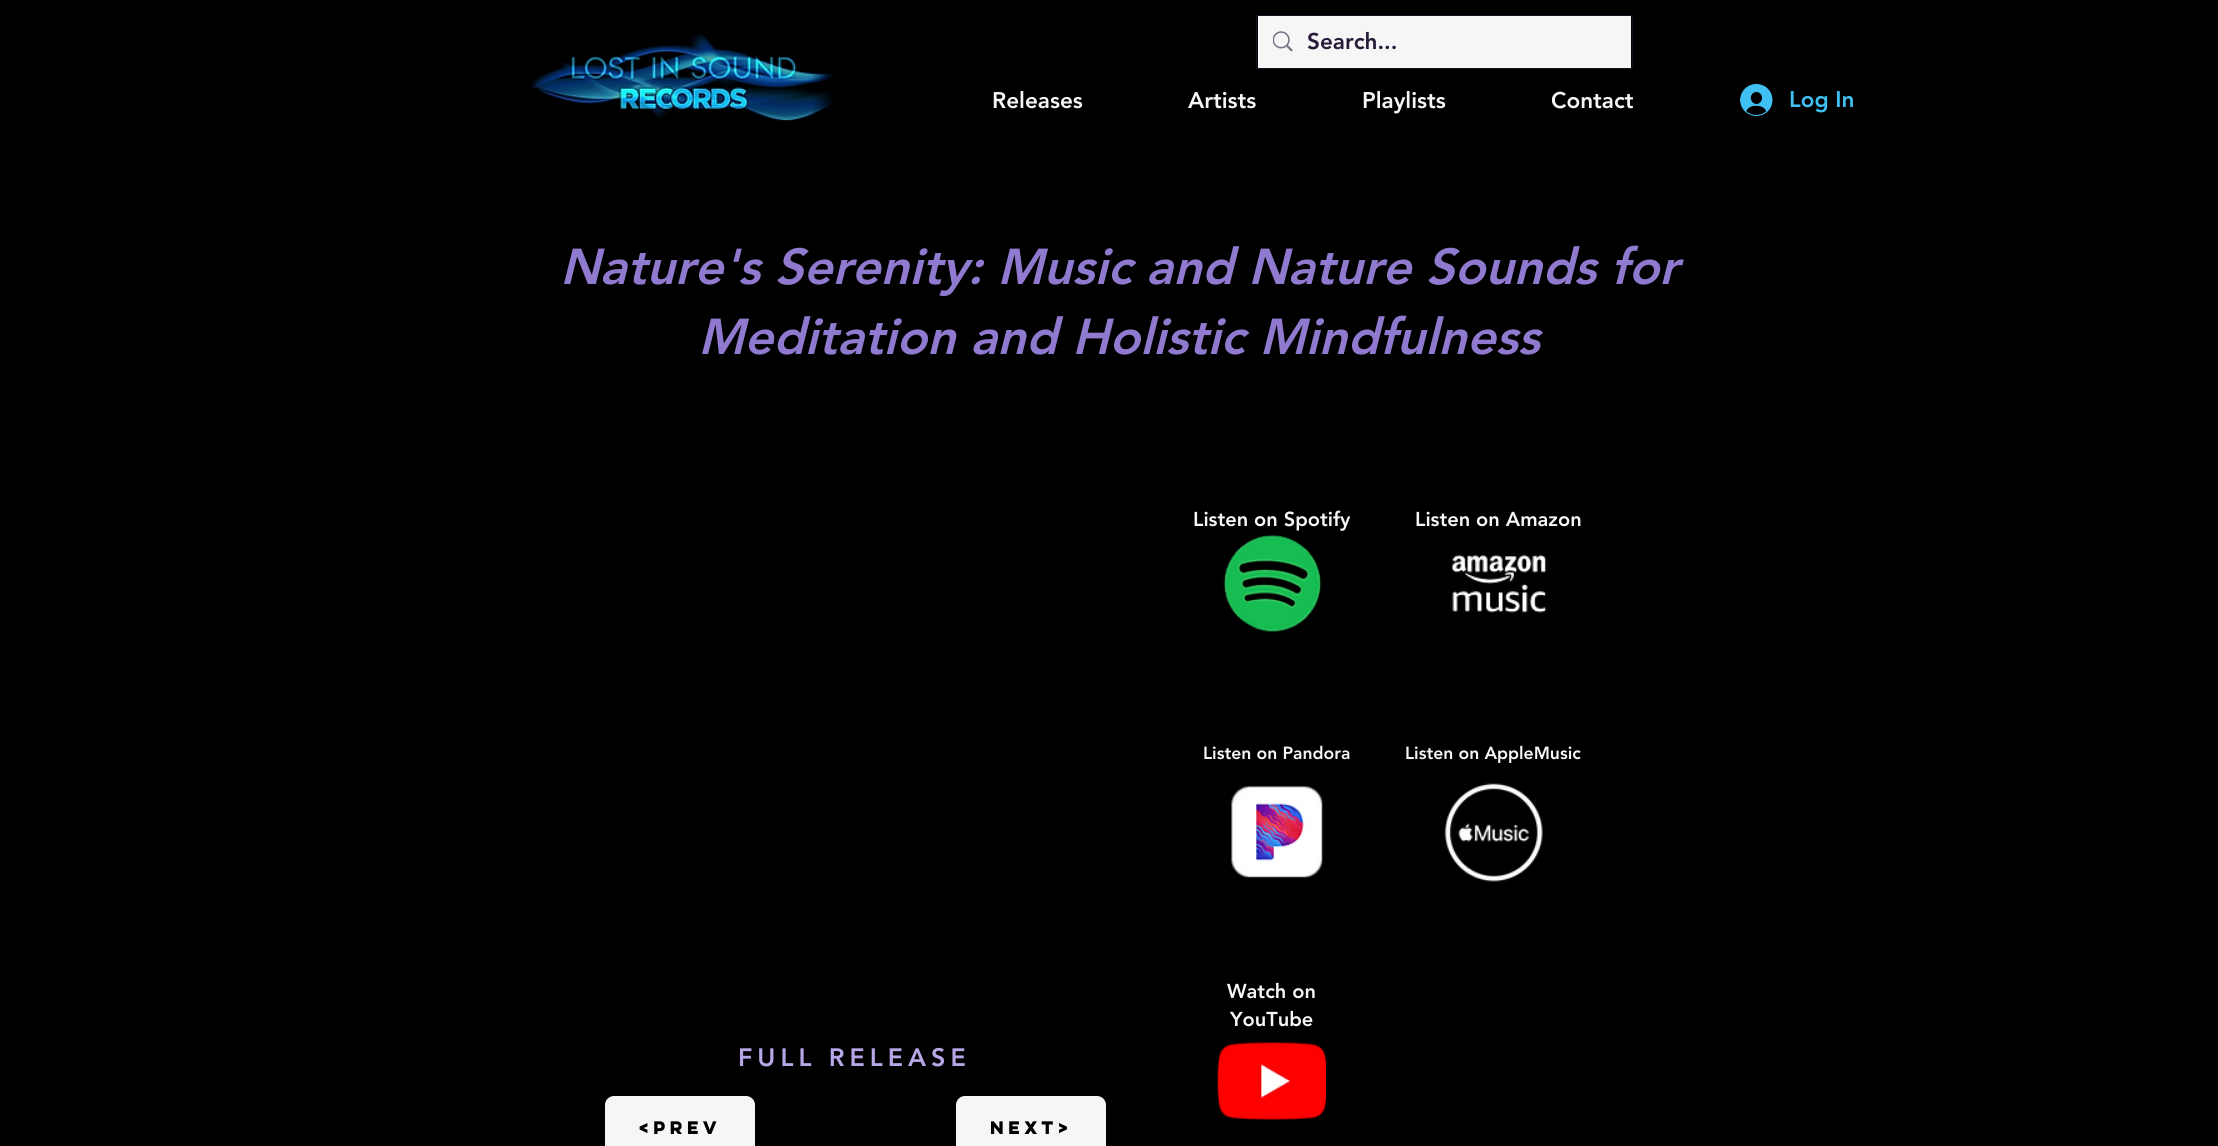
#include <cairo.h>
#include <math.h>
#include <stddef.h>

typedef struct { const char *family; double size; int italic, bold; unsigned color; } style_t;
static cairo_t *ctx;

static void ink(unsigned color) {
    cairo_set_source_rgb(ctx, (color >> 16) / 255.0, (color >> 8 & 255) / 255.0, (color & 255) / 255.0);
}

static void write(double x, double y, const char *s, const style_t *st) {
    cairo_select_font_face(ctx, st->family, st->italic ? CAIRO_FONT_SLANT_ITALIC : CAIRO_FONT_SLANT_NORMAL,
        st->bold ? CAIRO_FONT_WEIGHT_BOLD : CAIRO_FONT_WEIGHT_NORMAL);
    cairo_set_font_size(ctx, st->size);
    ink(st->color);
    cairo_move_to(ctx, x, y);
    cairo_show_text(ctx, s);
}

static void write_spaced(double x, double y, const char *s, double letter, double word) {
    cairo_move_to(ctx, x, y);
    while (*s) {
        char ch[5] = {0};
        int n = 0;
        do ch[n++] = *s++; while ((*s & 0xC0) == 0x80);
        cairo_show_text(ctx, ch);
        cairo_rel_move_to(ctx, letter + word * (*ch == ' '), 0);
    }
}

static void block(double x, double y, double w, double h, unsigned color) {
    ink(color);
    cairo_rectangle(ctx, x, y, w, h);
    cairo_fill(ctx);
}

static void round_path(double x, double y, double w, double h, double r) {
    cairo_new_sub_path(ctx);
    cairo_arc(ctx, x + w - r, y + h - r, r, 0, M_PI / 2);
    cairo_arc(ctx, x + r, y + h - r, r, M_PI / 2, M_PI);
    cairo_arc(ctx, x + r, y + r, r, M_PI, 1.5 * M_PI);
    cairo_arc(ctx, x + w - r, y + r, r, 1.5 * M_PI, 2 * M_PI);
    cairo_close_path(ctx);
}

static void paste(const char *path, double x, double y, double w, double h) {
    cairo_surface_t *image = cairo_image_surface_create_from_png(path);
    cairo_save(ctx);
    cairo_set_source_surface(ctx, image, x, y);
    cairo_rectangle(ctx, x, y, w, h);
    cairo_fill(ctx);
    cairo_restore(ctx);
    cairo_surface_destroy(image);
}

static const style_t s1 = {"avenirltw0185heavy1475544 Black", 22.5, 0, 0, 0x281a39};
static const style_t s2 = {"avenirltw0185heavy1475544 Black", 22.5, 0, 0, 0xf6f6f6};
static const style_t s3 = {"avenirltw0185heavy1475544 Black", 22.5, 0, 0, 0x40c0f2};
static const style_t s4 = {"avenirltw0185heavy1475544 Black", 50, 1, 0, 0x907acf};
static const style_t s5 = {"avenirltw0185heavy1475544 Black", 20, 0, 0, 0xf6f6f6};
static const style_t s6 = {"avenirltw0185heavy1475544 Black", 17.5, 0, 0, 0xf6f6f6};

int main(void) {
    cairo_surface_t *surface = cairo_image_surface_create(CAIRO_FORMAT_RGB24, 2218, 1146);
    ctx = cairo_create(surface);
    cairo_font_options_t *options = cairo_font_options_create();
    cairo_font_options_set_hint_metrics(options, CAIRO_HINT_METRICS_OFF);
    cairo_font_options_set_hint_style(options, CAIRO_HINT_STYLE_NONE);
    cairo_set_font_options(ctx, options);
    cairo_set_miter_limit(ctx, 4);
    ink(0x000000);
    cairo_paint(ctx);
    paste("pic1.png", 531, 32, 303, 89);
    cairo_rectangle(ctx, 1256.5, 15.5, 376, 53);
    ink(0x181022);
    cairo_set_line_width(ctx, 1);
    cairo_stroke(ctx);
    block(1258, 16, 373, 52, 0xf6f6f6);
    paste("pic2.png", 1273, 31, 20, 21);
    write(1307, 49, "Search...", &s1);
    write(992, 108, "Releases", &s2);
    write(1188, 108, "Artists", &s2);
    write(1362, 108, "Playlists", &s2);
    write(1551, 108, "Contact", &s2);
    paste("pic3.png", 1740, 84, 33, 32);
    write(1789, 107, "Log In", &s3);
    write(560, 284, "Nature's Serenity: Music and Nature Sounds for", &s4);
    write(698, 354, "Meditation and Holistic Mindfulness", &s4);
    write(1193, 526, "Listen on Spotify", &s5);
    paste("pic4.png", 1223, 535, 99, 98);
    write(1415, 526, "Listen on Amazon", &s5);
    paste("pic5.png", 1449, 554, 100, 60);
    write(1203, 759, "Listen on Pandora", &s6);
    paste("pic6.png", 1231, 786, 92, 92);
    write(1405, 759, "Listen on AppleMusic", &s6);
    paste("pic7.png", 1444, 783, 99, 99);
    write(1227, 998, "Watch on", &s5);
    write(1230, 1026, "YouTube", &s5);
    paste("pic8.png", 1217, 1042, 110, 79);
    cairo_set_font_size(ctx, 25);
    ink(0xb8a7e7);
    write_spaced(738, 1066, "FULL RELEASE", 5, 0);
    ink(0xf6f6f6);
    round_path(605, 1096, 150, 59, 9);
    cairo_fill(ctx);
    cairo_select_font_face(ctx, "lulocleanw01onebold", CAIRO_FONT_SLANT_NORMAL, CAIRO_FONT_WEIGHT_BOLD);
    cairo_set_font_size(ctx, 16.25);
    ink(0x000000);
    write_spaced(639, 1134, "<Prev", 1, 0);
    ink(0xf6f6f6);
    round_path(956, 1096, 150, 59, 9);
    cairo_fill(ctx);
    ink(0x000000);
    write_spaced(990, 1134, "Next>", 1, 0);
    cairo_surface_write_to_png(surface, "screenshot.png");
    cairo_font_options_destroy(options);
    cairo_destroy(ctx);
    cairo_surface_destroy(surface);
    return 0;
}
